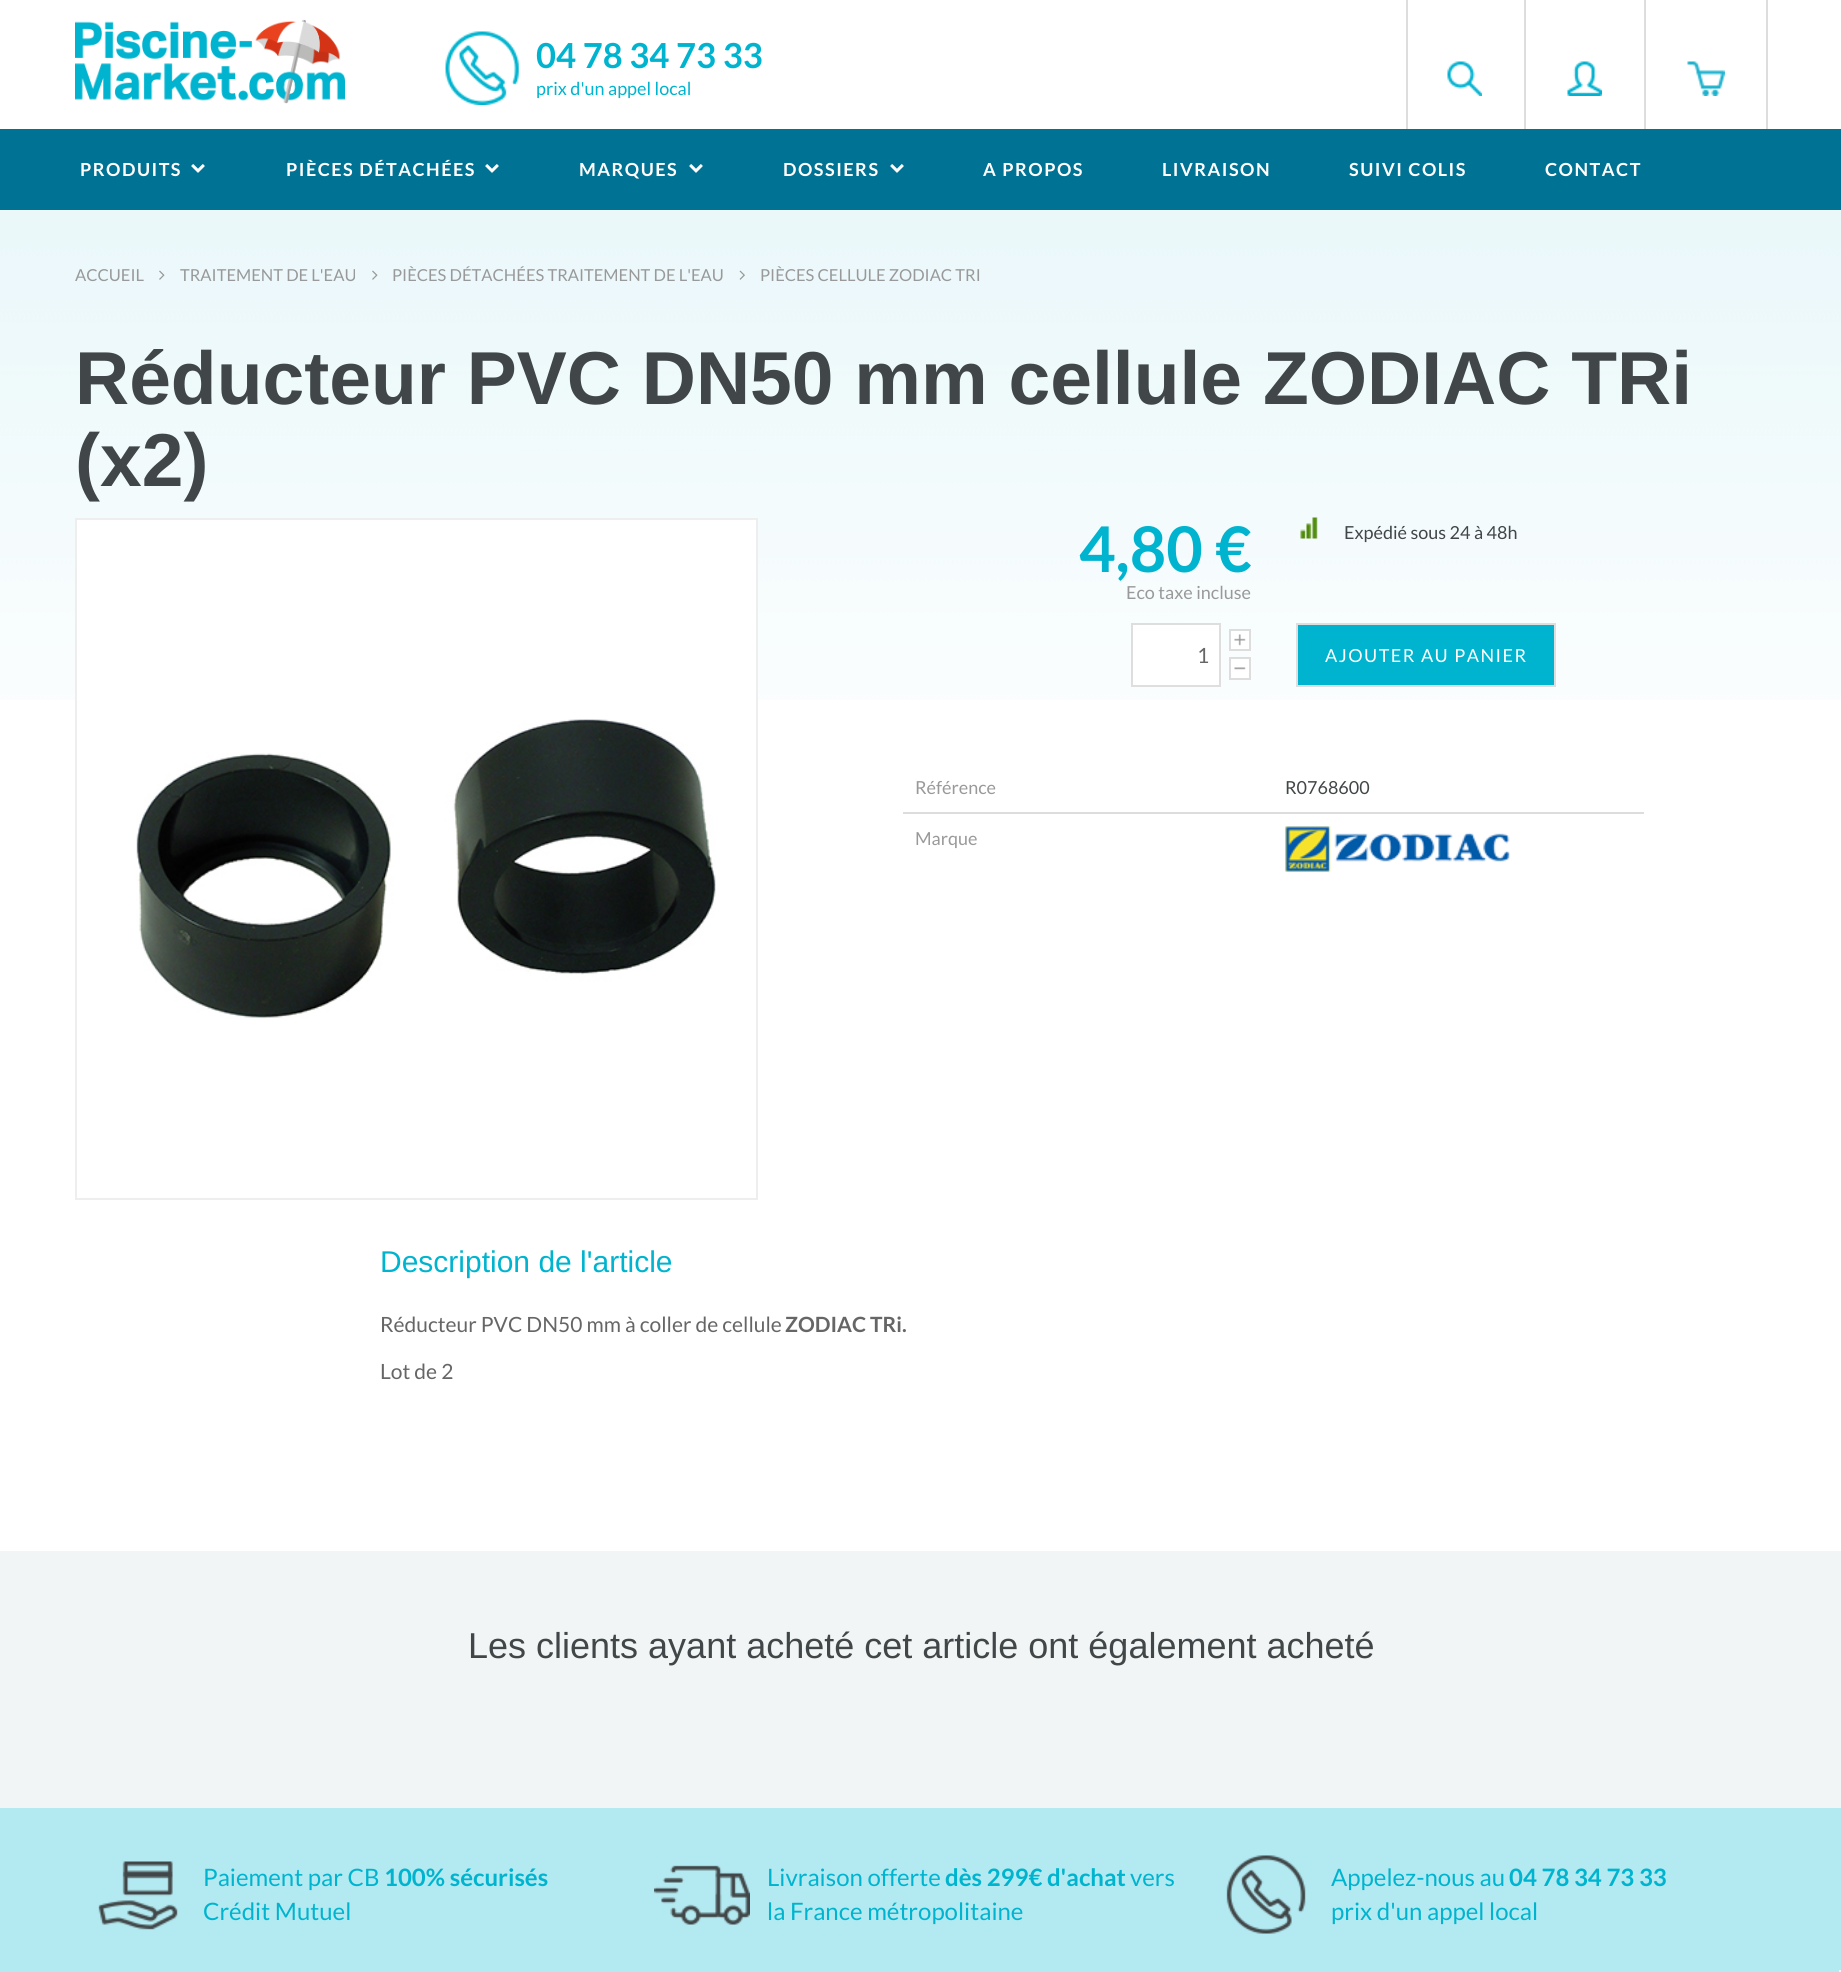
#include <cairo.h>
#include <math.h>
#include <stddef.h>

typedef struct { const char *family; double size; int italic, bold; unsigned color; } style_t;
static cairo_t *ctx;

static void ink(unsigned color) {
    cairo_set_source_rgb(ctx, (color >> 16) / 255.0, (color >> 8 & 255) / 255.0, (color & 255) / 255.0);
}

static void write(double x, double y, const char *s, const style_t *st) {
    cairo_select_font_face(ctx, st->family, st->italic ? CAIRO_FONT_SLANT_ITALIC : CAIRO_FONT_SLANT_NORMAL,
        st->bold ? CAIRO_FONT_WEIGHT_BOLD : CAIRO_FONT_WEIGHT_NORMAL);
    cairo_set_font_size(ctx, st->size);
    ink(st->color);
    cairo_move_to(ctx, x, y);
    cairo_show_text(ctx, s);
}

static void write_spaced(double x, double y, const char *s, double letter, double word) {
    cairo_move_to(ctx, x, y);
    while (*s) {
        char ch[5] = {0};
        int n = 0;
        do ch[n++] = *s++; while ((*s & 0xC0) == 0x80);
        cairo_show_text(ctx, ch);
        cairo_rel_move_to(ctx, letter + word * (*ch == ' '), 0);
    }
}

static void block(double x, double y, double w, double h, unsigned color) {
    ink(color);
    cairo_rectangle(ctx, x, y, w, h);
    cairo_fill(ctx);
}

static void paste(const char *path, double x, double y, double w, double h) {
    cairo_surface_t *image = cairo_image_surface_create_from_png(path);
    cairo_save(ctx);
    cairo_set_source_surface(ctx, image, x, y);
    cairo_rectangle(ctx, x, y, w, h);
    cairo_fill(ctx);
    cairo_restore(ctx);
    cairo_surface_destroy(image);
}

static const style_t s1 = {"Lato", 34.5, 0, 1, 0x00b4cf};
static const style_t s2 = {"Lato", 18, 0, 0, 0x00b4cf};
static const style_t s3 = {"Lato", 16.5, 0, 0, 0x999999};
static const style_t s4 = {"Liberation Sans", 75, 0, 1, 0x414748};
static const style_t s5 = {"Lato", 63, 0, 1, 0x00b4cf};
static const style_t s6 = {"Lato", 18, 0, 0, 0x999999};
static const style_t s7 = {"Lato", 18, 0, 0, 0x414748};
static const style_t s8 = {"Lato", 21, 0, 0, 0x666666};
static const style_t s9 = {"Liberation Sans", 30, 0, 0, 0x00b4cf};
static const style_t s10 = {"Lato", 21, 0, 1, 0x666666};
static const style_t s11 = {"Liberation Sans", 36, 0, 0, 0x414748};
static const style_t s12 = {"Lato", 24, 0, 0, 0x00b4cf};
static const style_t s13 = {"Lato", 24, 0, 1, 0x00b4cf};

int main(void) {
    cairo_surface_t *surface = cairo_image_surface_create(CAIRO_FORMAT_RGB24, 1841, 1972);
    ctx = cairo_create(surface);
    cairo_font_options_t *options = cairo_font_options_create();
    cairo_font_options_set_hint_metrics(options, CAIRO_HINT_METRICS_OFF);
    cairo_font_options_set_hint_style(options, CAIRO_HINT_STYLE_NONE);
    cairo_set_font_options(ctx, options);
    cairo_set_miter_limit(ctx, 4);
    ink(0xffffff);
    cairo_paint(ctx);
    paste("pic1.png", 75, 19, 270, 85);
    paste("pic2.png", 445, 31, 74, 74);
    write(536, 68, "04 78 34 73 33", &s1);
    write(536, 95, "prix d'un appel local", &s2);
    paste("pic3.png", 1447, 61, 35, 35);
    block(1524, 0, 2, 129, 0xdddddd);
    block(1406, 0, 2, 129, 0xdddddd);
    paste("pic4.png", 1567, 61, 35, 35);
    block(1644, 0, 2, 129, 0xdddddd);
    paste("pic5.png", 1687, 61, 38, 35);
    block(1766, 0, 2, 129, 0xdddddd);
    block(0, 129, 1841, 81, 0x007294);
    cairo_select_font_face(ctx, "Lato", CAIRO_FONT_SLANT_NORMAL, CAIRO_FONT_WEIGHT_BOLD);
    ink(0xffffff);
    write_spaced(80, 176, "PRODUITS", 1.5, 0);
    paste("pic6.png", 191, 164, 14, 9);
    write_spaced(286, 176, "PIÈCES DÉTACHÉES", 1.5, 0);
    paste("pic6.png", 485, 164, 14, 9);
    write_spaced(579, 176, "MARQUES", 1.5, 0);
    paste("pic6.png", 689, 164, 14, 9);
    write_spaced(783, 176, "DOSSIERS", 1.5, 0);
    paste("pic6.png", 890, 164, 14, 9);
    write_spaced(983, 176, "A PROPOS", 1.5, 0);
    write_spaced(1162, 176, "LIVRAISON", 1.5, 0);
    write_spaced(1349, 176, "SUIVI COLIS", 1.5, 0);
    write_spaced(1545, 176, "CONTACT", 1.5, 0);
    paste("pic7.png", 0, 210, 1841, 490);
    write(75, 281, "ACCUEIL", &s3);
    paste("pic8.png", 159, 270, 6, 10);
    write(180, 281, "TRAITEMENT DE L'EAU", &s3);
    paste("pic9.png", 372, 270, 6, 10);
    write(392, 281, "PIÈCES DÉTACHÉES TRAITEMENT DE L'EAU", &s3);
    paste("pic10.png", 739, 270, 6, 10);
    write(760, 281, "PIÈCES CELLULE ZODIAC TRI", &s3);
    write(75, 404, "Réducteur PVC DN50 mm cellule ZODIAC TRi", &s4);
    write(75, 486, "(x2)", &s4);
    block(77, 520, 679, 180, 0xffffff);
    cairo_rectangle(ctx, 76, 519, 681, 680);
    ink(0xeeeeee);
    cairo_stroke(ctx);
    paste("pic11.png", 136, 719, 580, 300);
    write(1079, 572, "4,80 €", &s5);
    write(1126, 599, "Eco taxe incluse", &s6);
    paste("pic12.png", 1300, 517, 18, 22);
    write(1344, 539, "Expédié sous 24 à 48h", &s7);
    ink(0xffffff);
    cairo_rectangle(ctx, 1132, 624, 88, 62);
    cairo_fill_preserve(ctx);
    ink(0xdedede);
    cairo_stroke(ctx);
    write(1197, 663, "1", &s8);
    paste("pic13.png", 1231, 631, 18, 18);
    cairo_rectangle(ctx, 1230, 630, 20, 20);
    ink(0xdddddd);
    cairo_stroke(ctx);
    paste("pic14.png", 1231, 659, 18, 19);
    cairo_rectangle(ctx, 1230, 658, 20, 21);
    cairo_stroke(ctx);
    ink(0x00b4cf);
    cairo_rectangle(ctx, 1297, 624, 258, 62);
    cairo_fill_preserve(ctx);
    ink(0xdedede);
    cairo_stroke(ctx);
    cairo_set_font_size(ctx, 18);
    ink(0xffffff);
    write_spaced(1325, 662, "AJOUTER AU PANIER", 1.5, 0);
    write(915, 794, "Référence", &s6);
    write(1285, 794, "R0768600", &s7);
    block(903, 812, 741, 2, 0xdddddd);
    paste("pic15.png", 1285, 826, 225, 46);
    write(915, 845, "Marque", &s6);
    write(380, 1272, "Description de l'article", &s9);
    write(380, 1332, "Réducteur PVC DN50 mm à coller de cellule", &s8);
    write(785, 1332, "ZODIAC TRi.", &s10);
    write(380, 1379, "Lot de 2", &s8);
    block(0, 1551, 1841, 257, 0xf2f5f6);
    write(468, 1658, "Les clients ayant acheté cet article ont également acheté", &s11);
    block(0, 1808, 1841, 164, 0xb3e9f1);
    paste("pic16.png", 98, 1861, 80, 69);
    write(203, 1886, "Paiement par CB", &s12);
    write(384, 1886, "100% sécurisés", &s13);
    write(203, 1920, "Crédit Mutuel", &s12);
    paste("pic17.png", 654, 1865, 96, 60);
    write(767, 1886, "Livraison offerte", &s12);
    write(945, 1886, "dès 299€ d'achat", &s13);
    write(1130, 1886, "vers", &s12);
    write(767, 1920, "la France métropolitaine", &s12);
    paste("pic18.png", 1226, 1855, 80, 79);
    write(1331, 1886, "Appelez-nous au", &s12);
    write(1509, 1886, "04 78 34 73 33", &s13);
    write(1331, 1920, "prix d'un appel local", &s12);
    block(1839, 1970, 2, 2, 0xf5f5f5);
    cairo_surface_write_to_png(surface, "screenshot.png");
    cairo_font_options_destroy(options);
    cairo_destroy(ctx);
    cairo_surface_destroy(surface);
    return 0;
}
